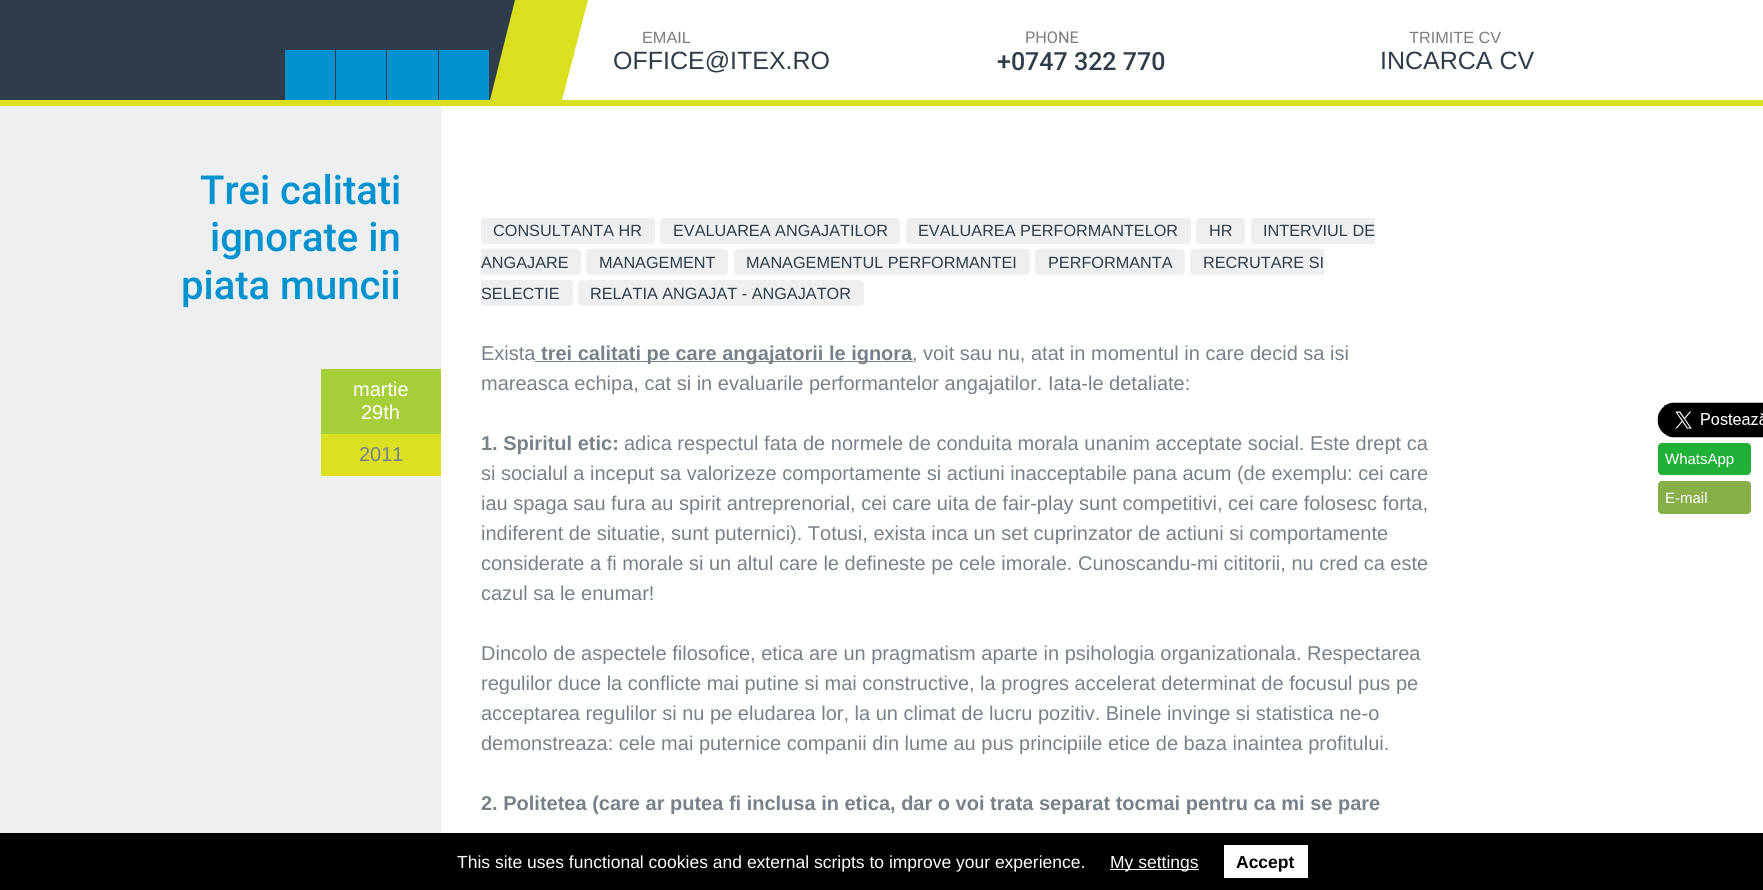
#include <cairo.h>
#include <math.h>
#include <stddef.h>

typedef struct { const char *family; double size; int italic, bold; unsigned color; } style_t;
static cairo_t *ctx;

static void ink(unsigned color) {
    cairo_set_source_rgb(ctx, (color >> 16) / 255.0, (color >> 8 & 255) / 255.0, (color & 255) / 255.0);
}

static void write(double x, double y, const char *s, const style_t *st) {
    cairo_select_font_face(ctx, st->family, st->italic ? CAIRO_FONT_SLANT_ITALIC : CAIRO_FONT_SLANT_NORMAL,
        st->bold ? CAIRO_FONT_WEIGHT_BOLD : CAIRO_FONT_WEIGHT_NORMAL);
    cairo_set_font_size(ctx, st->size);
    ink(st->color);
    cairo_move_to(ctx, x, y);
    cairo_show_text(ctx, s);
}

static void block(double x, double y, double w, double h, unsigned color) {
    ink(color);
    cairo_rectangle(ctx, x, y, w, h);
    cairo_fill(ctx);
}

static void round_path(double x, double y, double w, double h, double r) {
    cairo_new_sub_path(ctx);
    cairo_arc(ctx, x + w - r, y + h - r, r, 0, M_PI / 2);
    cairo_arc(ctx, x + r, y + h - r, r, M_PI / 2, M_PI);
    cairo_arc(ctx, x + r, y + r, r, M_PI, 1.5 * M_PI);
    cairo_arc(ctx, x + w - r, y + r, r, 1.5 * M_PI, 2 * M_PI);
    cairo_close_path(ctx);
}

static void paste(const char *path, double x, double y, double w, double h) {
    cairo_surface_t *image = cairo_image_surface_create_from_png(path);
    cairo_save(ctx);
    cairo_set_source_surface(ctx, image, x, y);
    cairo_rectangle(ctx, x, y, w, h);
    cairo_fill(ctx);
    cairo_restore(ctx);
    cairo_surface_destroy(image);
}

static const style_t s1 = {"Liberation Sans", 16.25, 0, 0, 0x7c7c7c};
static const style_t s2 = {"Liberation Sans", 25, 0, 0, 0x2e3d49};
static const style_t s3 = {"Roboto", 16.25, 0, 0, 0x7c7c7c};
static const style_t s4 = {"Roboto Medium", 25, 0, 0, 0x2e3d49};
static const style_t s5 = {"Roboto Medium", 40, 0, 0, 0x0091d1};
static const style_t s6 = {"Liberation Sans", 20, 0, 0, 0xffffff};
static const style_t s7 = {"Liberation Sans", 20, 0, 0, 0x778189};
static const style_t s8 = {"Liberation Sans", 16.25, 0, 0, 0x2e3d49};
static const style_t s9 = {"Liberation Sans", 20, 0, 1, 0x778189};
static const style_t s10 = {"Liberation Sans", 15, 0, 0, 0xffffff};
static const style_t s11 = {"Liberation Sans", 17.5, 0, 0, 0xffffff};
static const style_t s12 = {"Liberation Sans", 17.5, 0, 1, 0x000000};

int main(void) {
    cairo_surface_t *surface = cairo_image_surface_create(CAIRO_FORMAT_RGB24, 1763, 890);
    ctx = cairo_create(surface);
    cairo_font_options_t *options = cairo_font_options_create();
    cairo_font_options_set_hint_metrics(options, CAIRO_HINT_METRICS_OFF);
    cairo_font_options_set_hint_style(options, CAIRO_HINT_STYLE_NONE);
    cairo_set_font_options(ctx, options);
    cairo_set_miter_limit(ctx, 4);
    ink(0xedeff1);
    cairo_paint(ctx);
    block(588, 0, 1175, 100, 0xffffff);
    block(0, 100, 1763, 6, 0xdadf20);
    block(0, 0, 490, 100, 0x2e3d49);
    block(285, 50, 50, 50, 0x0091d1);
    block(336, 50, 102, 50, 0x0091d1);
    block(386, 50, 1, 50, 0x2e3d49);
    block(439, 50, 50, 50, 0x0091d1);
    block(490, 0, 98, 100, 0xdadf20);
    ink(0x2e3d49);
    cairo_new_path(ctx);
    cairo_move_to(ctx, 490, 0);
    cairo_line_to(ctx, 515, 0);
    cairo_line_to(ctx, 490, 100);
    cairo_close_path(ctx);
    cairo_fill(ctx);
    ink(0xffffff);
    cairo_new_path(ctx);
    cairo_move_to(ctx, 588, 100);
    cairo_line_to(ctx, 562, 100);
    cairo_line_to(ctx, 588, 0);
    cairo_close_path(ctx);
    cairo_fill(ctx);
    write(642, 43, "EMAIL", &s1);
    write(613, 69, "OFFICE@ITEX.RO", &s2);
    write(1025, 43, "PHONE", &s3);
    write(997, 70, "+0747 322 770", &s4);
    write(1409, 43, "TRIMITE CV", &s1);
    write(1380, 69, "INCARCA CV", &s2);
    write(200, 204, "Trei calitati", &s5);
    write(210, 251, "ignorate in", &s5);
    write(181, 299, "piata muncii", &s5);
    block(321, 434, 120, 42, 0xdadf20);
    block(321, 369, 120, 65, 0xa6ce39);
    write(353, 396, "martie", &s6);
    write(361, 419, "29th", &s6);
    write(359, 461, "2011", &s7);
    block(441, 106, 1322, 727, 0xffffff);
    ink(0xedeff1);
    round_path(481, 218, 174, 26, 4);
    cairo_fill(ctx);
    write(493, 236, "CONSULTANTA HR", &s8);
    ink(0xedeff1);
    round_path(660, 218, 240, 26, 4);
    cairo_fill(ctx);
    write(673, 236, "EVALUAREA ANGAJATILOR", &s8);
    ink(0xedeff1);
    round_path(906, 218, 285, 26, 4);
    cairo_fill(ctx);
    write(918, 236, "EVALUAREA PERFORMANTELOR", &s8);
    ink(0xedeff1);
    round_path(1196, 218, 49, 26, 4);
    cairo_fill(ctx);
    write(1209, 236, "HR", &s8);
    ink(0xedeff1);
    cairo_new_path(ctx);
    cairo_move_to(ctx, 1255, 218);
    cairo_line_to(ctx, 1375, 218);
    cairo_line_to(ctx, 1375, 244);
    cairo_line_to(ctx, 1255, 244);
    cairo_curve_to(ctx, 1253, 244, 1251, 242, 1251, 240);
    cairo_line_to(ctx, 1251, 222);
    cairo_curve_to(ctx, 1251, 220, 1253, 218, 1255, 218);
    cairo_close_path(ctx);
    cairo_fill(ctx);
    write(1263, 236, "INTERVIUL DE", &s8);
    ink(0xedeff1);
    cairo_new_path(ctx);
    cairo_move_to(ctx, 481, 249);
    cairo_line_to(ctx, 577, 249);
    cairo_curve_to(ctx, 579, 249, 581, 251, 581, 253);
    cairo_line_to(ctx, 581, 271);
    cairo_curve_to(ctx, 581, 273, 579, 275, 577, 275);
    cairo_line_to(ctx, 481, 275);
    cairo_close_path(ctx);
    cairo_fill(ctx);
    write(481, 268, "ANGAJARE", &s8);
    ink(0xedeff1);
    round_path(586, 249, 142, 26, 4);
    cairo_fill(ctx);
    write(599, 268, "MANAGEMENT", &s8);
    ink(0xedeff1);
    round_path(734, 249, 296, 26, 4);
    cairo_fill(ctx);
    write(746, 268, "MANAGEMENTUL PERFORMANTEI", &s8);
    ink(0xedeff1);
    round_path(1035, 249, 150, 26, 4);
    cairo_fill(ctx);
    write(1048, 268, "PERFORMANTA", &s8);
    ink(0xedeff1);
    cairo_new_path(ctx);
    cairo_move_to(ctx, 1194, 249);
    cairo_line_to(ctx, 1324, 249);
    cairo_line_to(ctx, 1324, 275);
    cairo_line_to(ctx, 1194, 275);
    cairo_curve_to(ctx, 1192, 275, 1190, 273, 1190, 271);
    cairo_line_to(ctx, 1190, 253);
    cairo_curve_to(ctx, 1190, 251, 1192, 249, 1194, 249);
    cairo_close_path(ctx);
    cairo_fill(ctx);
    write(1203, 268, "RECRUTARE SI", &s8);
    ink(0xedeff1);
    cairo_new_path(ctx);
    cairo_move_to(ctx, 481, 280);
    cairo_line_to(ctx, 569, 280);
    cairo_curve_to(ctx, 571, 280, 573, 282, 573, 284);
    cairo_line_to(ctx, 573, 302);
    cairo_curve_to(ctx, 573, 304, 571, 306, 569, 306);
    cairo_line_to(ctx, 481, 306);
    cairo_close_path(ctx);
    cairo_fill(ctx);
    write(481, 299, "SELECTIE", &s8);
    ink(0xedeff1);
    round_path(578, 280, 286, 26, 4);
    cairo_fill(ctx);
    write(590, 299, "RELATIA ANGAJAT - ANGAJATOR", &s8);
    write(481, 360, "Exista", &s7);
    block(535, 361, 378, 1, 0x778189);
    write(541, 360, "trei calitati pe care angajatorii le ignora", &s9);
    write(912, 360, ", voit sau nu, atat in momentul in care decid sa isi", &s7);
    write(481, 390, "mareasca echipa, cat si in evaluarile performantelor angajatilor. Iata-le detaliate:", &s7);
    write(481, 450, "1. Spiritul etic:", &s9);
    write(624, 450, "adica respectul fata de normele de conduita morala unanim acceptate social. Este drept ca", &s7);
    write(481, 480, "si socialul a inceput sa valorizeze comportamente si actiuni inacceptabile pana acum (de exemplu: cei care", &s7);
    write(481, 510, "iau spaga sau fura au spirit antreprenorial, cei care uita de fair-play sunt competitivi, cei care folosesc forta,", &s7);
    write(481, 540, "indiferent de situatie, sunt puternici). Totusi, exista inca un set cuprinzator de actiuni si comportamente", &s7);
    write(481, 570, "considerate a fi morale si un altul care le defineste pe cele imorale. Cunoscandu-mi cititorii, nu cred ca este", &s7);
    write(481, 600, "cazul sa le enumar!", &s7);
    write(481, 660, "Dincolo de aspectele filosofice, etica are un pragmatism aparte in psihologia organizationala. Respectarea", &s7);
    write(481, 690, "regulilor duce la conflicte mai putine si mai constructive, la progres accelerat determinat de focusul pus pe", &s7);
    write(481, 720, "acceptarea regulilor si nu pe eludarea lor, la un climat de lucru pozitiv. Binele invinge si statistica ne-o", &s7);
    write(481, 750, "demonstreaza: cele mai puternice companii din lume au pus principiile etice de baza inaintea profitului.", &s7);
    write(481, 810, "2. Politetea (care ar putea fi inclusa in etica, dar o voi trata separat tocmai pentru ca mi se pare", &s9);
    paste("pic1.png", 1657, 402, 106, 36);
    ink(0x20b038);
    round_path(1658, 443, 93, 32, 4);
    cairo_fill(ctx);
    write(1665, 464, "WhatsApp", &s10);
    ink(0x86af49);
    round_path(1658, 481, 93, 33, 4);
    cairo_fill(ctx);
    write(1665, 503, "E-mail", &s10);
    block(0, 833, 1763, 57, 0x000000);
    write(457, 868, "This site uses functional cookies and external scripts to improve your experience.", &s11);
    block(1110, 869, 89, 1, 0xffffff);
    write(1110, 868, "My settings", &s11);
    block(1224, 845, 84, 33, 0xffffff);
    write(1236, 868, "Accept", &s12);
    cairo_surface_write_to_png(surface, "screenshot.png");
    cairo_font_options_destroy(options);
    cairo_destroy(ctx);
    cairo_surface_destroy(surface);
    return 0;
}
